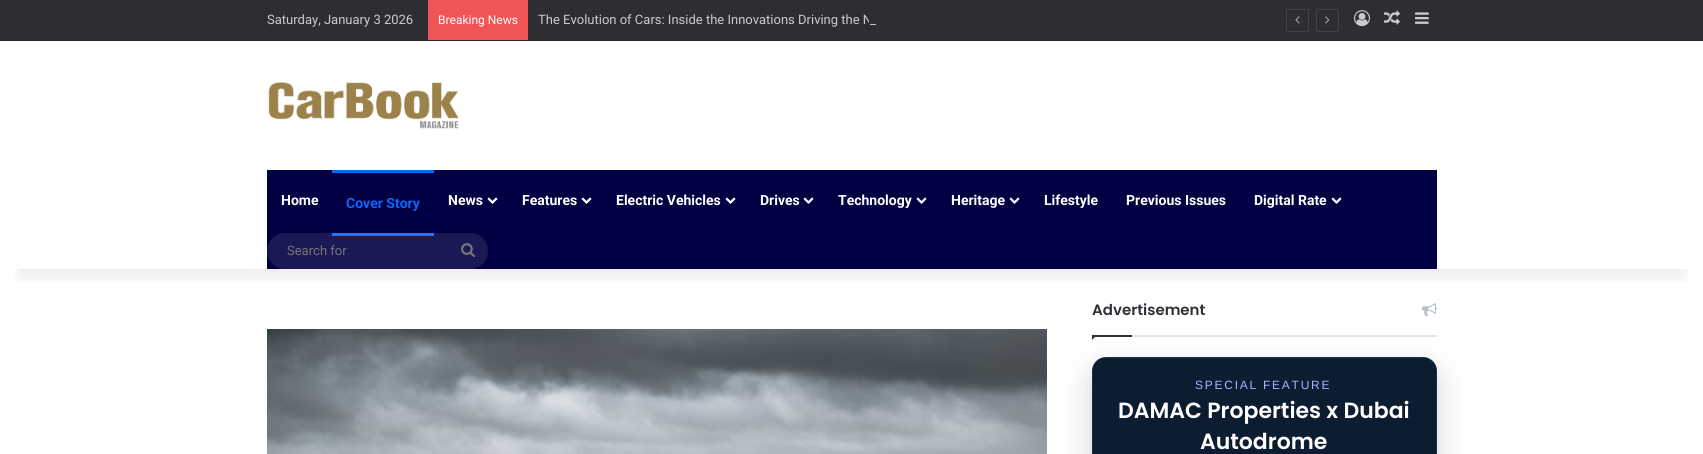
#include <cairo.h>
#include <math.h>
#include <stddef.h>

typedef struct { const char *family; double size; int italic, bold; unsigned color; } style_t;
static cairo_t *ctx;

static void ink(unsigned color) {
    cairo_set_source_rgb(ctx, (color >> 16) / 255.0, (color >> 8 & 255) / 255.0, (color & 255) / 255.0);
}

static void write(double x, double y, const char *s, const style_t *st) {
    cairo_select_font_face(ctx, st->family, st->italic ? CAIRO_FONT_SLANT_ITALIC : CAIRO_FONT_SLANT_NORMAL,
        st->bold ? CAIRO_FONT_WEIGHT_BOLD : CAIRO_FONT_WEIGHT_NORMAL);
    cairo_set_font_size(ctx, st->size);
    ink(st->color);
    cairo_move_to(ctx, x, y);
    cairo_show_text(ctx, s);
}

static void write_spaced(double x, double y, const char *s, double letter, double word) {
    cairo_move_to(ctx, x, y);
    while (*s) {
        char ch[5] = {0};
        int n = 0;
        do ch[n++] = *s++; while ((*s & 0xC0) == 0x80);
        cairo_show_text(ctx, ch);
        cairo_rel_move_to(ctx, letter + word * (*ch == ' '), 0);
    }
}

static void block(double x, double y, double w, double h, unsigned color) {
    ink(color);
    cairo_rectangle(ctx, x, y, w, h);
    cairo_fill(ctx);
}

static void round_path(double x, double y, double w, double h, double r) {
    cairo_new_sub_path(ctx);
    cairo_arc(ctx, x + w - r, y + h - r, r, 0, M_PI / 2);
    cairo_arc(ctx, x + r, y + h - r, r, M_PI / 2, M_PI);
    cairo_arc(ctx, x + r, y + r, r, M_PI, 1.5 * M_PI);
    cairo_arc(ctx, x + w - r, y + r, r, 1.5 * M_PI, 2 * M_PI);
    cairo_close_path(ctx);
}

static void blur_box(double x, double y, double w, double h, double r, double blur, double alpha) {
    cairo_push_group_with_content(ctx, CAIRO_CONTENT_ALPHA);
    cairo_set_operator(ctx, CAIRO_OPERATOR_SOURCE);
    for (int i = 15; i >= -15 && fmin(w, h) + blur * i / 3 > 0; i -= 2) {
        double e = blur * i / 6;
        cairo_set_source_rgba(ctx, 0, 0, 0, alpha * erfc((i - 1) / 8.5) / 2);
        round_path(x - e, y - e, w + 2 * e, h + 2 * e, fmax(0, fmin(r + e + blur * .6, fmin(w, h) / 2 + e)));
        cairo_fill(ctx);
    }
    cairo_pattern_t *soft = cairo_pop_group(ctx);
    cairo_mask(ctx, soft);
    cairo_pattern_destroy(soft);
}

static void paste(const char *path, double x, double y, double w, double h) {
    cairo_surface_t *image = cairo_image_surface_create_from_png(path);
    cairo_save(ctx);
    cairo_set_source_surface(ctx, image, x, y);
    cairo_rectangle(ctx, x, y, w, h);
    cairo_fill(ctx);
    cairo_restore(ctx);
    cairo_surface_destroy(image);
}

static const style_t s1 = {"Roboto", 13, 0, 0, 0xcccccc};
static const style_t s2 = {"Roboto", 12, 0, 0, 0xffffff};
static const style_t s3 = {"Roboto", 14, 0, 1, 0xffffff};
static const style_t s4 = {"Roboto", 14, 0, 1, 0x0669ff};
static const style_t s5 = {"Roboto", 13, 0, 0, 0x757575};
static const style_t s6 = {"Poppins SemiBold", 15, 0, 0, 0x2e3136};
static const style_t s7 = {"Poppins SemiBold", 22, 0, 0, 0xffffff};

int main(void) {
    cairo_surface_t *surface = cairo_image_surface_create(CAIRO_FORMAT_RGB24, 1703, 454);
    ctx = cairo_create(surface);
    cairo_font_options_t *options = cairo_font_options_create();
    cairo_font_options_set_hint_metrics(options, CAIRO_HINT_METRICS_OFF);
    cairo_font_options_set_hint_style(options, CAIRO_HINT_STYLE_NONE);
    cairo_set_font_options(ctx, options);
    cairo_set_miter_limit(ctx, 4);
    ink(0xffffff);
    cairo_paint(ctx);
    paste("pic10.png", 1422, 303, 15, 13);
    cairo_save(ctx);
    cairo_rectangle(ctx, 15, 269, 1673, 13);
    cairo_clip(ctx);
    ink(0x000000);
    blur_box(20, 45, 1663, 229, 0, 10, 0.1);
    cairo_restore(ctx);
    block(0, 0, 1703, 40, 0x2c2e32);
    block(0, 40, 1703, 1, 0x28292d);
    write(267, 24, "Saturday, January 3 2026", &s1);
    block(428, 0, 100, 40, 0xf05555);
    write(438, 24, "Breaking News", &s2);
    write(538, 24, "The Evolution of Cars: Inside the Innovations Driving the N", &s1);
    block(869, 14, 2, 10, 0x2c2e32);
    write(870, 24, "_", &s1);
    round_path(1286.5, 9.5, 22, 22, 1.5);
    ink(0x414347);
    cairo_set_line_width(ctx, 1);
    cairo_stroke(ctx);
    paste("pic1.png", 1295, 16, 5, 8);
    round_path(1316.5, 9.5, 22, 22, 1.5);
    cairo_stroke(ctx);
    paste("pic2.png", 1325, 16, 5, 8);
    paste("pic3.png", 1354, 10, 16, 17);
    paste("pic4.png", 1384, 10, 16, 15);
    paste("pic5.png", 1415, 12, 14, 12);
    paste("pic6.png", 268, 82, 191, 47);
    block(267, 170, 1170, 99, 0x010042);
    write(281, 205, "Home", &s3);
    block(332, 170, 102, 3, 0x0669ff);
    block(332, 233, 102, 3, 0x0669ff);
    write(346, 208, "Cover Story", &s4);
    write(448, 205, "News", &s3);
    paste("pic7.png", 487, 197, 11, 7);
    write(522, 205, "Features", &s3);
    paste("pic7.png", 581, 197, 11, 7);
    write(616, 205, "Electric Vehicles", &s3);
    paste("pic7.png", 725, 197, 11, 7);
    write(760, 205, "Drives", &s3);
    paste("pic7.png", 803, 197, 11, 7);
    write(838, 205, "Technology", &s3);
    paste("pic7.png", 916, 197, 11, 7);
    write(951, 205, "Heritage", &s3);
    paste("pic7.png", 1009, 197, 11, 7);
    write(1044, 205, "Lifestyle", &s3);
    write(1126, 205, "Previous Issues", &s3);
    write(1254, 205, "Digital Rate", &s3);
    paste("pic7.png", 1331, 197, 11, 7);
    cairo_set_source_rgba(ctx, 1, 1, 1, 0.1);
    round_path(267, 233, 221, 36, 18);
    cairo_fill(ctx);
    write(287, 255, "Search for", &s5);
    paste("pic8.png", 461, 243, 14, 14);
    paste("pic9.png", 267, 329, 780, 125);
    ink(0x050819);
    blur_box(1092, 369, 345, 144, 14, 15, 0.18);
    block(1132, 335, 305, 2, 0xe5e5e5);
    write(1092, 315, "Advertisement", &s6);
    cairo_new_path(ctx);
    cairo_move_to(ctx, 1092, 335);
    cairo_line_to(ctx, 1097, 335);
    cairo_line_to(ctx, 1092, 340);
    cairo_close_path(ctx);
    cairo_fill(ctx);
    block(1092, 335, 40, 2, 0x2e3136);
    ink(0x0c1c31);
    round_path(1092, 357, 345, 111, 14);
    cairo_fill(ctx);
    round_path(1092.5, 357.5, 344, 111, 13.5);
    cairo_set_source_rgba(ctx, 1, 1, 1, 0.08);
    cairo_stroke(ctx);
    ink(0x0c1c31);
    cairo_new_path(ctx);
    cairo_move_to(ctx, 1106, 358);
    cairo_line_to(ctx, 1423, 358);
    cairo_curve_to(ctx, 1430, 358, 1436, 364, 1436, 371);
    cairo_line_to(ctx, 1436, 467);
    cairo_line_to(ctx, 1093, 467);
    cairo_line_to(ctx, 1093, 371);
    cairo_curve_to(ctx, 1093, 364, 1099, 358, 1106, 358);
    cairo_close_path(ctx);
    cairo_fill(ctx);
    cairo_select_font_face(ctx, "Liberation Sans", CAIRO_FONT_SLANT_NORMAL, CAIRO_FONT_WEIGHT_NORMAL);
    cairo_set_font_size(ctx, 12);
    ink(0xa0b7ff);
    write_spaced(1195, 389, "SPECIAL FEATURE", 1.75, 0);
    write(1118, 418, "DAMAC Properties x Dubai", &s7);
    write(1200, 449, "Autodrome", &s7);
    cairo_surface_write_to_png(surface, "screenshot.png");
    cairo_font_options_destroy(options);
    cairo_destroy(ctx);
    cairo_surface_destroy(surface);
    return 0;
}
